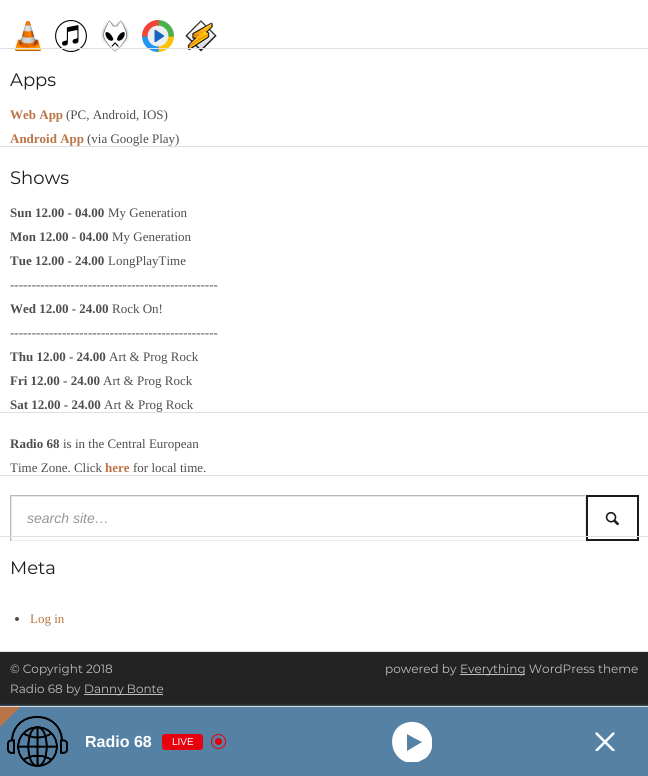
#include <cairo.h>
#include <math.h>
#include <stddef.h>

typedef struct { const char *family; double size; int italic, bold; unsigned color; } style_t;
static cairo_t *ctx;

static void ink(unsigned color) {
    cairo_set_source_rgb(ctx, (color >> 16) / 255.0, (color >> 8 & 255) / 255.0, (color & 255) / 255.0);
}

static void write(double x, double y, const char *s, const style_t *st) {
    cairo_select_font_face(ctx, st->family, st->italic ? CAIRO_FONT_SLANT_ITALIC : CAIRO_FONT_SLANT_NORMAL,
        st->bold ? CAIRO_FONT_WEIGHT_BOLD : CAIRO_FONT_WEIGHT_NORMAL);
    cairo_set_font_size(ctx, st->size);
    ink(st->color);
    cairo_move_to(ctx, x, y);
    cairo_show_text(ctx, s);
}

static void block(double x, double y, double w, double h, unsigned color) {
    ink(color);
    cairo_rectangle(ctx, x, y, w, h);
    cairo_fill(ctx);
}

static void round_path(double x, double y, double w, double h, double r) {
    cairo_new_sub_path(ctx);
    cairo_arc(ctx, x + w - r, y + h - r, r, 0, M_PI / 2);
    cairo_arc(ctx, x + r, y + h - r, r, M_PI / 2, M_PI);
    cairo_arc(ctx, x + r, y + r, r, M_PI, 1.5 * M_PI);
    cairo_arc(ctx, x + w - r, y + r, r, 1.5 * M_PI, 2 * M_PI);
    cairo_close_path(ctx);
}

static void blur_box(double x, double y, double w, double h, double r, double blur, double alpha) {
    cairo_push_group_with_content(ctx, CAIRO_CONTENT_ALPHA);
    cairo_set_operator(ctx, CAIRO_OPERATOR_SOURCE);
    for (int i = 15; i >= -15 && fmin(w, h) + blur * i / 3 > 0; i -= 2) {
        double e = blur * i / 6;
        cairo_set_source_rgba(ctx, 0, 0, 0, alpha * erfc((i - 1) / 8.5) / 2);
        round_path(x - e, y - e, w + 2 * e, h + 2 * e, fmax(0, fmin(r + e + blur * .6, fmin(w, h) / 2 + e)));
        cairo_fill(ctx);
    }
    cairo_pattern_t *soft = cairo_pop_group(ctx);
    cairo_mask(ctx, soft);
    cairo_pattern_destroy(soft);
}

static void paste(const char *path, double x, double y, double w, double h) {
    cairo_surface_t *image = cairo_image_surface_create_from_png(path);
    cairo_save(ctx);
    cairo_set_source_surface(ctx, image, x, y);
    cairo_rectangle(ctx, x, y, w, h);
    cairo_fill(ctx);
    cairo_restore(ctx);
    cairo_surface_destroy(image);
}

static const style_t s1 = {"Montserrat", 18, 0, 0, 0x1b1b1b};
static const style_t s2 = {"Liberation Serif", 13, 0, 1, 0xba7445};
static const style_t s3 = {"Liberation Serif", 13, 0, 0, 0x4e4e4e};
static const style_t s4 = {"Liberation Serif", 13, 0, 1, 0x4e4e4e};
static const style_t s5 = {"Liberation Sans", 14, 1, 0, 0x969696};
static const style_t s6 = {"Liberation Serif", 13, 0, 0, 0xba7445};
static const style_t s7 = {"Montserrat", 12, 0, 0, 0xbebebe};
static const style_t s8 = {"Liberation Sans", 16, 0, 1, 0xffffff};
static const style_t s9 = {"Liberation Sans", 10, 0, 0, 0xffffff};

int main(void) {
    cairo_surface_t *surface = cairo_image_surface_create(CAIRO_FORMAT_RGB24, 648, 776);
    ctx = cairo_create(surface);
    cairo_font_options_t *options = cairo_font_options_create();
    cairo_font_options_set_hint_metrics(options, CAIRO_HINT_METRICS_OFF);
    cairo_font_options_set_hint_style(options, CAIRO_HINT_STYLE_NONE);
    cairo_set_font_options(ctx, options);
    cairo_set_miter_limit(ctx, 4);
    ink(0xffffff);
    cairo_paint(ctx);
    block(0, 651, 648, 1, 0xe0e0e0);
    paste("pic1.png", 15, 21, 26, 30);
    paste("pic2.png", 55, 20, 32, 32);
    paste("pic3.png", 101, 20, 28, 32);
    paste("pic4.png", 142, 20, 32, 32);
    paste("pic5.png", 185, 20, 32, 32);
    block(0, 48, 648, 1, 0xdfdfdf);
    write(10, 86, "Apps", &s1);
    write(10, 119, "Web App", &s2);
    write(66, 119, "(PC, Android, IOS)", &s3);
    write(10, 143, "Android App", &s2);
    write(87, 143, "(via Google Play)", &s3);
    block(0, 146, 648, 1, 0xdfdfdf);
    write(10, 184, "Shows", &s1);
    write(10, 217, "Sun 12.00 - 04.00", &s4);
    write(108, 217, "My Generation", &s3);
    write(10, 241, "Mon 12.00 - 04.00", &s4);
    write(112, 241, "My Generation", &s3);
    write(10, 265, "Tue 12.00 - 24.00", &s4);
    write(108, 265, "LongPlayTime", &s3);
    write(10, 289, "------------------------------------------------", &s3);
    write(10, 313, "Wed 12.00 - 24.00", &s4);
    write(112, 313, "Rock On!", &s3);
    write(10, 337, "------------------------------------------------", &s3);
    write(10, 361, "Thu 12.00 - 24.00", &s4);
    write(109, 361, "Art & Prog Rock", &s3);
    write(10, 385, "Fri 12.00 - 24.00", &s4);
    write(103, 385, "Art & Prog Rock", &s3);
    write(10, 409, "Sat 12.00 - 24.00", &s4);
    write(104, 409, "Art & Prog Rock", &s3);
    block(0, 412, 648, 1, 0xdfdfdf);
    write(10, 448, "Radio 68", &s4);
    write(63, 448, "is in the Central European", &s3);
    write(10, 472, "Time Zone. Click", &s3);
    write(105, 472, "here", &s2);
    write(133, 472, "for local time.", &s3);
    block(0, 475, 648, 1, 0xdfdfdf);
    cairo_save(ctx);
    cairo_rectangle(ctx, 11, 496, 574, 44);
    cairo_clip(ctx);
    ink(0xe8e8e8);
    cairo_set_fill_rule(ctx, CAIRO_FILL_RULE_EVEN_ODD);
    cairo_new_path(ctx);
    cairo_move_to(ctx, -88, 397);
    cairo_line_to(ctx, 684, 397);
    cairo_line_to(ctx, 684, 639);
    cairo_line_to(ctx, -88, 639);
    cairo_close_path(ctx);
    cairo_move_to(ctx, 12, 497);
    cairo_line_to(ctx, 586, 497);
    cairo_line_to(ctx, 586, 541);
    cairo_line_to(ctx, 12, 541);
    cairo_close_path(ctx);
    cairo_fill(ctx);
    cairo_restore(ctx);
    block(10, 495, 576, 1, 0xbababa);
    block(585, 495, 1, 46, 0xededed);
    block(10, 540, 576, 1, 0xededed);
    block(10, 495, 1, 46, 0xbababa);
    write(27, 523, "search site…", &s5);
    cairo_rectangle(ctx, 587, 496, 51, 44);
    ink(0x1b1b1b);
    cairo_stroke(ctx);
    paste("pic6.png", 605, 511, 14, 15);
    block(0, 536, 648, 1, 0xdfdfdf);
    write(10, 574, "Meta", &s1);
    ink(0x4e4e4e);
    cairo_new_path(ctx);
    cairo_arc(ctx, 17, 619, 2, 0, 2 * M_PI);
    cairo_fill(ctx);
    write(30, 623, "Log in", &s6);
    block(0, 652, 648, 54, 0x232323);
    write(10, 673, "© Copyright 2018", &s7);
    write(10, 693, "Radio 68 by", &s7);
    block(84, 694, 79, 1, 0xbebebe);
    write(84, 693, "Danny Bonte", &s7);
    write(385, 673, "powered by", &s7);
    block(460, 674, 65, 1, 0xbebebe);
    write(460, 673, "Everything WordPress theme", &s7);
    ink(0x5581a4);
    blur_box(0, 706, 648, 70, 0, 1.5, 1);
    block(0, 707, 648, 69, 0x5581a4);
    block(0, 706, 648, 1, 0xdddddd);
    paste("pic7.png", 7, 716, 61, 51);
    ink(0xba7445);
    cairo_new_path(ctx);
    cairo_move_to(ctx, 0, 707);
    cairo_line_to(ctx, 20, 707);
    cairo_line_to(ctx, 10, 717);
    cairo_close_path(ctx);
    cairo_fill(ctx);
    cairo_new_path(ctx);
    cairo_move_to(ctx, 0, 727);
    cairo_line_to(ctx, 0, 707);
    cairo_line_to(ctx, 10, 717);
    cairo_close_path(ctx);
    cairo_fill(ctx);
    write(85, 747, "Radio 68", &s8);
    ink(0xe8000e);
    round_path(162, 734, 41, 16, 3);
    cairo_fill(ctx);
    write(172, 745, "LIVE", &s9);
    ink(0xe8000e);
    cairo_new_path(ctx);
    cairo_arc(ctx, 218.5, 741.5, 3.5, 0, 2 * M_PI);
    cairo_fill(ctx);
    cairo_arc(ctx, 218.5, 741.5, 7, 0, 2 * M_PI);
    cairo_set_line_width(ctx, 1);
    cairo_stroke(ctx);
    cairo_save(ctx);
    cairo_rectangle(ctx, 391, 721, 41, 41);
    cairo_clip(ctx);
    ink(0xffffff);
    cairo_new_path(ctx);
    cairo_move_to(ctx, 410, 722);
    cairo_curve_to(ctx, 383, 725, 388, 765, 415, 763);
    cairo_curve_to(ctx, 419, 762, 422, 760, 426, 758);
    cairo_curve_to(ctx, 440, 745, 430, 720, 410, 722);
    cairo_close_path(ctx);
    cairo_move_to(ctx, 414, 738);
    cairo_line_to(ctx, 422, 742);
    cairo_line_to(ctx, 407, 751);
    cairo_line_to(ctx, 407, 734);
    cairo_close_path(ctx);
    cairo_fill(ctx);
    cairo_restore(ctx);
    paste("pic8.png", 595, 732, 20, 19);
    cairo_surface_write_to_png(surface, "screenshot.png");
    cairo_font_options_destroy(options);
    cairo_destroy(ctx);
    cairo_surface_destroy(surface);
    return 0;
}
